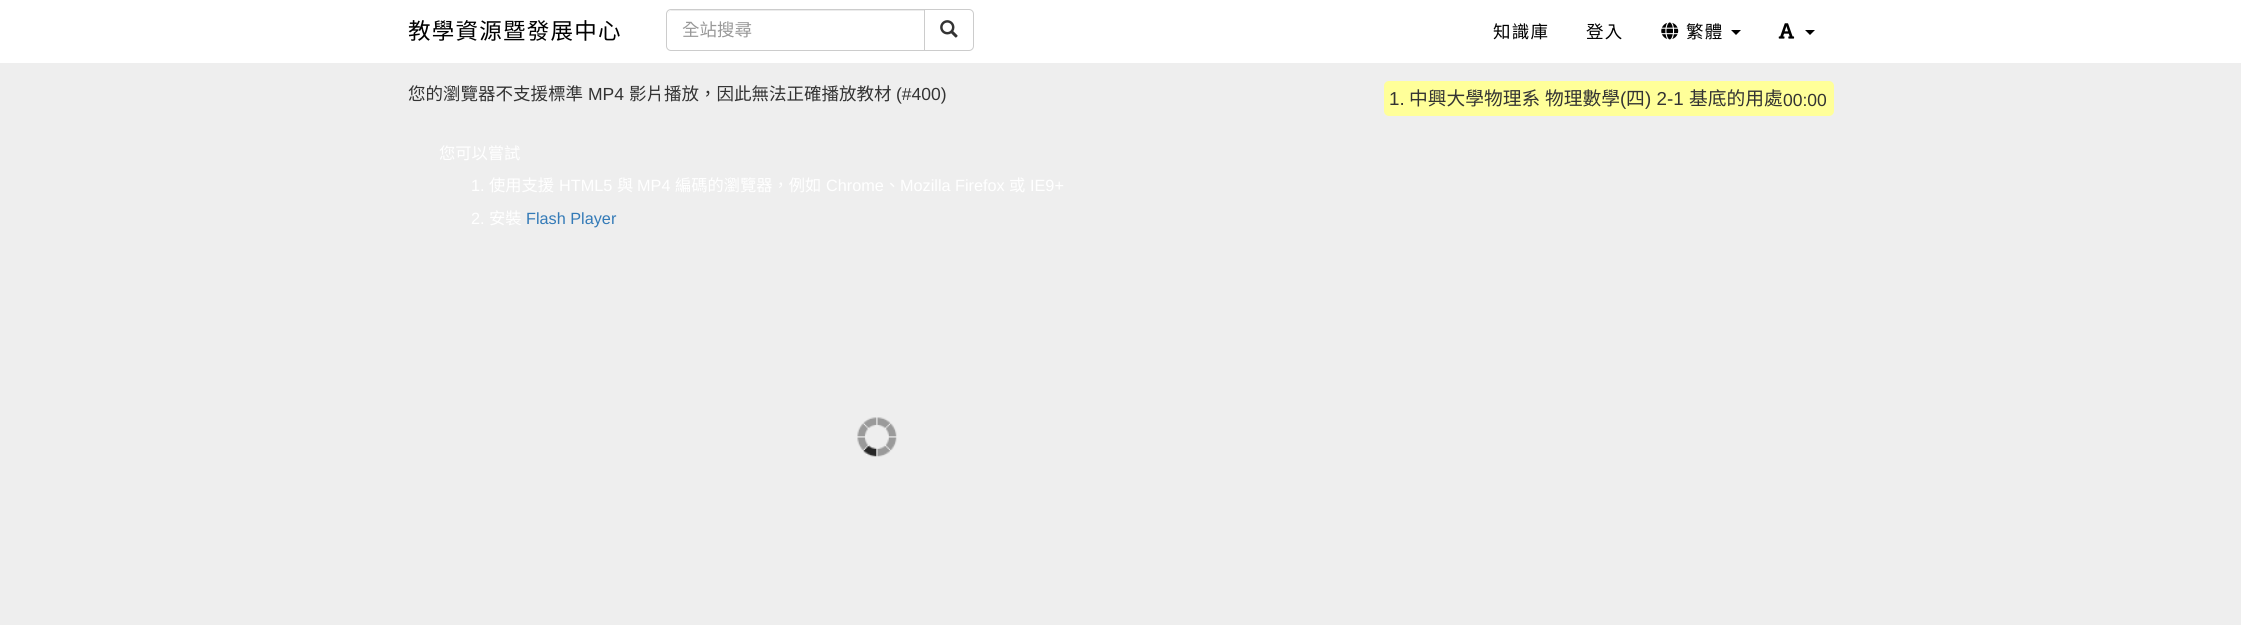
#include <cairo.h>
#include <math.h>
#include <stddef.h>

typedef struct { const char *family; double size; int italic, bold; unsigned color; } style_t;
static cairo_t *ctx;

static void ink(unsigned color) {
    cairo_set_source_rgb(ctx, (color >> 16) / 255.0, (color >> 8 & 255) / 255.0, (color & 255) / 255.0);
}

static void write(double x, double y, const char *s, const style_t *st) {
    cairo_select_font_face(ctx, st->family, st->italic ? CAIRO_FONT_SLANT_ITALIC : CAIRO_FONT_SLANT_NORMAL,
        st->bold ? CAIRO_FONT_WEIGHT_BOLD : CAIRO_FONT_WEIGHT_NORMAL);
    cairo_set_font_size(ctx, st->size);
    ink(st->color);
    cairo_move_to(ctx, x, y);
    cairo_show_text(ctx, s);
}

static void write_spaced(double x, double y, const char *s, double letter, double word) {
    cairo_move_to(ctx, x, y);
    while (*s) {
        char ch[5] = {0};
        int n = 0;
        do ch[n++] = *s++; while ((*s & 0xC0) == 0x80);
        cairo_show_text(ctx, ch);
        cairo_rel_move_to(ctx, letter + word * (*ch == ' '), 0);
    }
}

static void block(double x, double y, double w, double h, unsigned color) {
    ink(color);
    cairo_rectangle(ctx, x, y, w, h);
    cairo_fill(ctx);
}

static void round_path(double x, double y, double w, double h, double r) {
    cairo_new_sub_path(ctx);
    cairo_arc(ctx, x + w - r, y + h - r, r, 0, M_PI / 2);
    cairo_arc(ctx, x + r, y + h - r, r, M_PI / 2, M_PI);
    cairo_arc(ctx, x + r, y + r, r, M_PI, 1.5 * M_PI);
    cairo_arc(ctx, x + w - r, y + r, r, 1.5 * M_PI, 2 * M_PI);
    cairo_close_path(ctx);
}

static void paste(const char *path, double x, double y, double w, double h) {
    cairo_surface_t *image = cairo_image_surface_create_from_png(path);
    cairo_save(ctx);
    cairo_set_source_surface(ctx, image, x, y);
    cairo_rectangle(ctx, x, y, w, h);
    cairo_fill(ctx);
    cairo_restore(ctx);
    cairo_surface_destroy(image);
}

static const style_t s1 = {"Noto Sans CJK TC", 17.5, 0, 0, 0x999999};
static const style_t s2 = {"Noto Sans CJK TC", 17.5, 0, 0, 0x333333};
static const style_t s3 = {"Liberation Sans", 17.5, 0, 0, 0x333333};
static const style_t s4 = {"Noto Sans CJK TC", 16.25, 0, 0, 0xffffff};
static const style_t s5 = {"Liberation Sans", 16.25, 0, 0, 0xffffff};
static const style_t s6 = {"Liberation Sans", 16.25, 0, 0, 0x337ab7};
static const style_t s7 = {"Liberation Sans", 18.75, 0, 0, 0x333333};
static const style_t s8 = {"Noto Sans CJK TC", 18.75, 0, 0, 0x333333};

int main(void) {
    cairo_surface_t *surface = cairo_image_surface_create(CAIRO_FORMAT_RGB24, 2241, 625);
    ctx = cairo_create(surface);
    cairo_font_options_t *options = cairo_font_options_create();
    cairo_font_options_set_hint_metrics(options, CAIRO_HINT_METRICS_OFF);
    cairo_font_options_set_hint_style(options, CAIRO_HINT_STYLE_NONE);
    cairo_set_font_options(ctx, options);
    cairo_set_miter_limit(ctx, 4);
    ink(0xffffff);
    cairo_paint(ctx);
    cairo_select_font_face(ctx, "Noto Sans CJK TC", CAIRO_FONT_SLANT_NORMAL, CAIRO_FONT_WEIGHT_NORMAL);
    cairo_set_font_size(ctx, 22.5);
    ink(0x000000);
    write_spaced(408, 39, "教學資源暨發展中心", 1.25, 0);
    ink(0xececec);
    cairo_new_path(ctx);
    cairo_move_to(ctx, 671, 11);
    cairo_line_to(ctx, 924, 11);
    cairo_line_to(ctx, 924, 10);
    cairo_line_to(ctx, 672, 10);
    cairo_curve_to(ctx, 670, 10, 668, 12, 668, 14);
    cairo_line_to(ctx, 668, 15);
    cairo_curve_to(ctx, 668, 13, 669, 11, 671, 11);
    cairo_close_path(ctx);
    cairo_fill(ctx);
    cairo_new_path(ctx);
    cairo_move_to(ctx, 671, 9.5);
    cairo_line_to(ctx, 924.5, 9.5);
    cairo_line_to(ctx, 924.5, 50.5);
    cairo_line_to(ctx, 671, 50.5);
    cairo_curve_to(ctx, 668.5, 50.5, 666.5, 48.5, 666.5, 46);
    cairo_line_to(ctx, 666.5, 14);
    cairo_curve_to(ctx, 666.5, 11.5, 668.5, 9.5, 671, 9.5);
    cairo_close_path(ctx);
    ink(0xcccccc);
    cairo_set_line_width(ctx, 1);
    cairo_stroke(ctx);
    write(682, 36, "全站搜尋", &s1);
    ink(0xffffff);
    cairo_new_path(ctx);
    cairo_move_to(ctx, 924.5, 9.5);
    cairo_line_to(ctx, 969, 9.5);
    cairo_curve_to(ctx, 971.5, 9.5, 973.5, 11.5, 973.5, 14);
    cairo_line_to(ctx, 973.5, 46);
    cairo_curve_to(ctx, 973.5, 48.5, 971.5, 50.5, 969, 50.5);
    cairo_line_to(ctx, 924.5, 50.5);
    cairo_close_path(ctx);
    cairo_fill_preserve(ctx);
    ink(0xcccccc);
    cairo_stroke(ctx);
    paste("pic1.png", 940, 20, 18, 18);
    ink(0x000000);
    write_spaced(1493, 38, "知識庫", 1.25, 0);
    write_spaced(1586, 38, "登入", 1.25, 0);
    paste("pic2.png", 1661, 22, 18, 18);
    write_spaced(1686, 38, "繁體", 1.25, 0);
    cairo_new_path(ctx);
    cairo_move_to(ctx, 1731, 30);
    cairo_line_to(ctx, 1741, 30);
    cairo_line_to(ctx, 1736, 35);
    cairo_close_path(ctx);
    cairo_fill(ctx);
    paste("pic3.png", 1778, 23, 17, 16);
    cairo_new_path(ctx);
    cairo_move_to(ctx, 1805, 30);
    cairo_line_to(ctx, 1815, 30);
    cairo_line_to(ctx, 1810, 35);
    cairo_close_path(ctx);
    cairo_fill(ctx);
    block(0, 63, 2241, 562, 0xeeeeee);
    paste("pic4.png", 857, 417, 40, 40);
    write(408, 100, "您的瀏覽器不支援標準", &s2);
    write(588, 100, "MP4", &s3);
    write(629, 100, "影片播放，因此無法正確播放教材", &s2);
    write(896, 100, "(#400)", &s3);
    write(439, 159, "您可以嘗試", &s4);
    write(471, 191, "1.", &s5);
    write(489, 191, "使用支援", &s4);
    write(559, 191, "HTML5", &s5);
    write(617, 191, "與", &s4);
    write(637, 191, "MP4", &s5);
    write(675, 191, "編碼的瀏覽器，例如", &s4);
    write(826, 191, "Chrome", &s5);
    write(884, 191, "、", &s4);
    write(900, 191, "Mozilla Firefox", &s5);
    write(1009, 191, "或", &s4);
    write(1030, 191, "IE9+", &s5);
    write(471, 224, "2.", &s5);
    write(489, 224, "安裝", &s4);
    write(526, 224, "Flash Player", &s6);
    ink(0xffff99);
    round_path(1384, 81, 450, 35, 5);
    cairo_fill(ctx);
    write(1389, 105, "1.", &s7);
    write(1409, 105, "中興大學物理系", &s8);
    write(1545, 105, "物理數學", &s8);
    write(1620, 105, "(", &s7);
    write(1626, 105, "四", &s8);
    write(1645, 105, ") 2-1", &s7);
    write(1689, 105, "基底的用處", &s8);
    write(1783, 106, "00:00", &s3);
    cairo_surface_write_to_png(surface, "screenshot.png");
    cairo_font_options_destroy(options);
    cairo_destroy(ctx);
    cairo_surface_destroy(surface);
    return 0;
}
